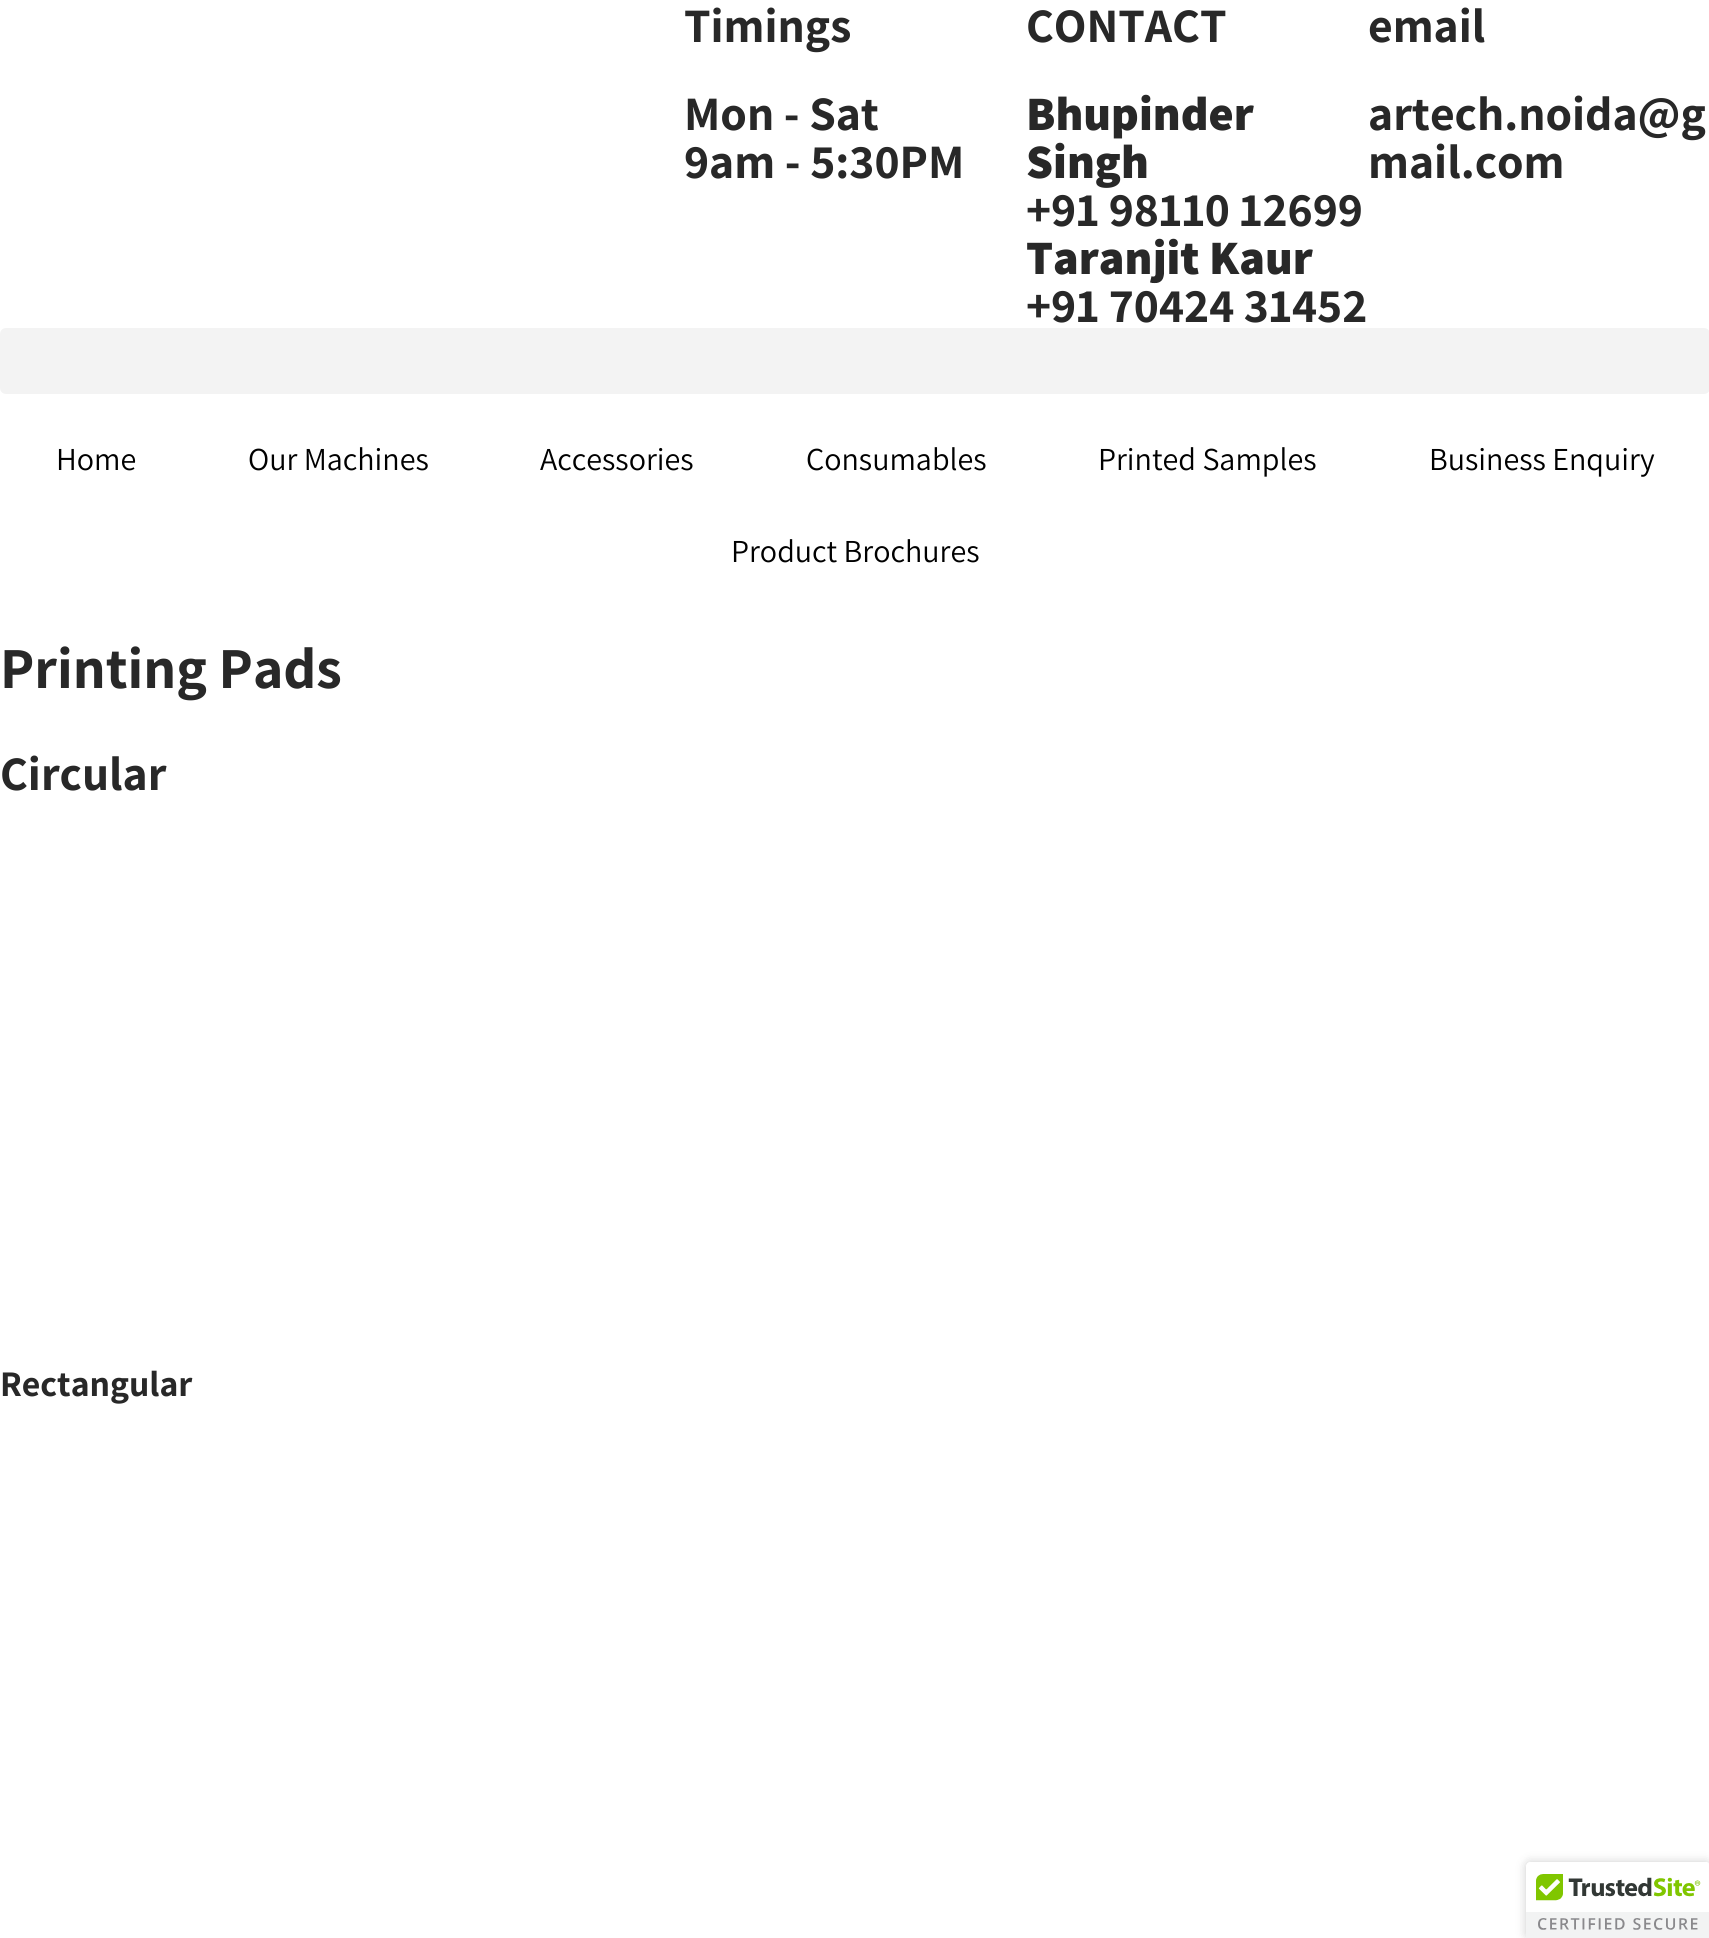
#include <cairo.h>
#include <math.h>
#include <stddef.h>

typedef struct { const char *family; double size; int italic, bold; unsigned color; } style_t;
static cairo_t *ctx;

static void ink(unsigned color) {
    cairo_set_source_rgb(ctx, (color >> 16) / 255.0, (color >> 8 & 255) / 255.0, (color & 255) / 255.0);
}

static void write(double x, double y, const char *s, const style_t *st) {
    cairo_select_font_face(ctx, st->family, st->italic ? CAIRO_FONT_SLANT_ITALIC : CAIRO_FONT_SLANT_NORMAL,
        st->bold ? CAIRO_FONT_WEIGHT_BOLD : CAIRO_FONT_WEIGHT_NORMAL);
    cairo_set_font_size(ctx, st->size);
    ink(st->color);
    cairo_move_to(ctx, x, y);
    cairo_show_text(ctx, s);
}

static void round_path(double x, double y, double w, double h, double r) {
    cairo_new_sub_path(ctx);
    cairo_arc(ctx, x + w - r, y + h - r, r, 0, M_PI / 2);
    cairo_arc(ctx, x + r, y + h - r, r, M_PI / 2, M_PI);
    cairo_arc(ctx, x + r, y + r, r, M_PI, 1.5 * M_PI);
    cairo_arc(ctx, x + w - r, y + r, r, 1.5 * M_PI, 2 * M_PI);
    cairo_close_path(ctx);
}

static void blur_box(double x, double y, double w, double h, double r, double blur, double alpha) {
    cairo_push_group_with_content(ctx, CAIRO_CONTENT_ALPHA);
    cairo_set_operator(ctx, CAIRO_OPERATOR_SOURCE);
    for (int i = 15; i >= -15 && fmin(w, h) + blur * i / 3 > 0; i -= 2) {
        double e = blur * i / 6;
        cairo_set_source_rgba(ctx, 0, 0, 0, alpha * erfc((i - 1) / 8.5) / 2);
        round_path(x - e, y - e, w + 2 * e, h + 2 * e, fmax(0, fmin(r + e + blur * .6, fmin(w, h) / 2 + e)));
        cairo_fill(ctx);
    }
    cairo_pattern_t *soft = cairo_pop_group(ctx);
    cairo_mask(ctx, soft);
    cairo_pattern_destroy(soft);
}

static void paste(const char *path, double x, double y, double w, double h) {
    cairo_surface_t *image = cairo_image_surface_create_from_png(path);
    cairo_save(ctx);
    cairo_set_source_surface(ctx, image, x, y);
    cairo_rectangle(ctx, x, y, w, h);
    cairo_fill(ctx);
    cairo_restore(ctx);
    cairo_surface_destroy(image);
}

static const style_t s1 = {"Assistant", 48, 0, 1, 0x282828};
static const style_t s2 = {"Assistant ExtraBold", 48, 0, 0, 0x282828};
static const style_t s3 = {"Assistant", 32, 0, 0, 0x000000};
static const style_t s4 = {"Assistant", 58, 0, 1, 0x282828};
static const style_t s5 = {"Assistant", 36, 0, 1, 0x282828};

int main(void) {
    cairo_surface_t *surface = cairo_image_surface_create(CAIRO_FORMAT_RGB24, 1709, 1938);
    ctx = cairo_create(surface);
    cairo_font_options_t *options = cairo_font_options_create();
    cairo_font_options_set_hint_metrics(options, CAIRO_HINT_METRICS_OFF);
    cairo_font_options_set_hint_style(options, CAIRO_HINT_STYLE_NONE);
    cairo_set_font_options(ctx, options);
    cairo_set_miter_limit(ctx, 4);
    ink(0xffffff);
    cairo_paint(ctx);
    write(684, 42, "Timings", &s1);
    write(684, 130, "Mon - Sat", &s1);
    write(684, 178, "9am - 5:30PM", &s1);
    write(1026, 42, "CONTACT", &s1);
    write(1026, 130, "Bhupinder", &s2);
    write(1026, 178, "Singh", &s2);
    write(1026, 226, "+91 98110 12699", &s1);
    write(1026, 274, "Taranjit Kaur", &s2);
    write(1026, 322, "+91 70424 31452", &s1);
    write(1368, 42, "email", &s1);
    write(1368, 130, "artech.noida@g", &s1);
    write(1368, 178, "mail.com", &s1);
    ink(0xf3f3f3);
    round_path(0, 328, 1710, 66, 6);
    cairo_fill(ctx);
    write(56, 470, "Home", &s3);
    write(248, 470, "Our Machines", &s3);
    write(540, 470, "Accessories", &s3);
    write(806, 470, "Consumables", &s3);
    write(1098, 470, "Printed Samples", &s3);
    write(1429, 470, "Business Enquiry", &s3);
    write(731, 562, "Product Brochures", &s3);
    write(0, 688, "Printing Pads", &s4);
    write(0, 790, "Circular", &s1);
    write(0, 1396, "Rectangular", &s5);
    ink(0x000000);
    blur_box(1526, 1862, 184, 76, 4, 5, 0.2);
    ink(0xffffff);
    cairo_new_path(ctx);
    cairo_move_to(ctx, 1530, 1862);
    cairo_line_to(ctx, 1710, 1862);
    cairo_line_to(ctx, 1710, 1938);
    cairo_line_to(ctx, 1526, 1938);
    cairo_line_to(ctx, 1526, 1866);
    cairo_curve_to(ctx, 1526, 1864, 1528, 1862, 1530, 1862);
    cairo_close_path(ctx);
    cairo_fill(ctx);
    paste("pic1.png", 1526, 1862, 183, 76);
    cairo_surface_write_to_png(surface, "screenshot.png");
    cairo_font_options_destroy(options);
    cairo_destroy(ctx);
    cairo_surface_destroy(surface);
    return 0;
}
